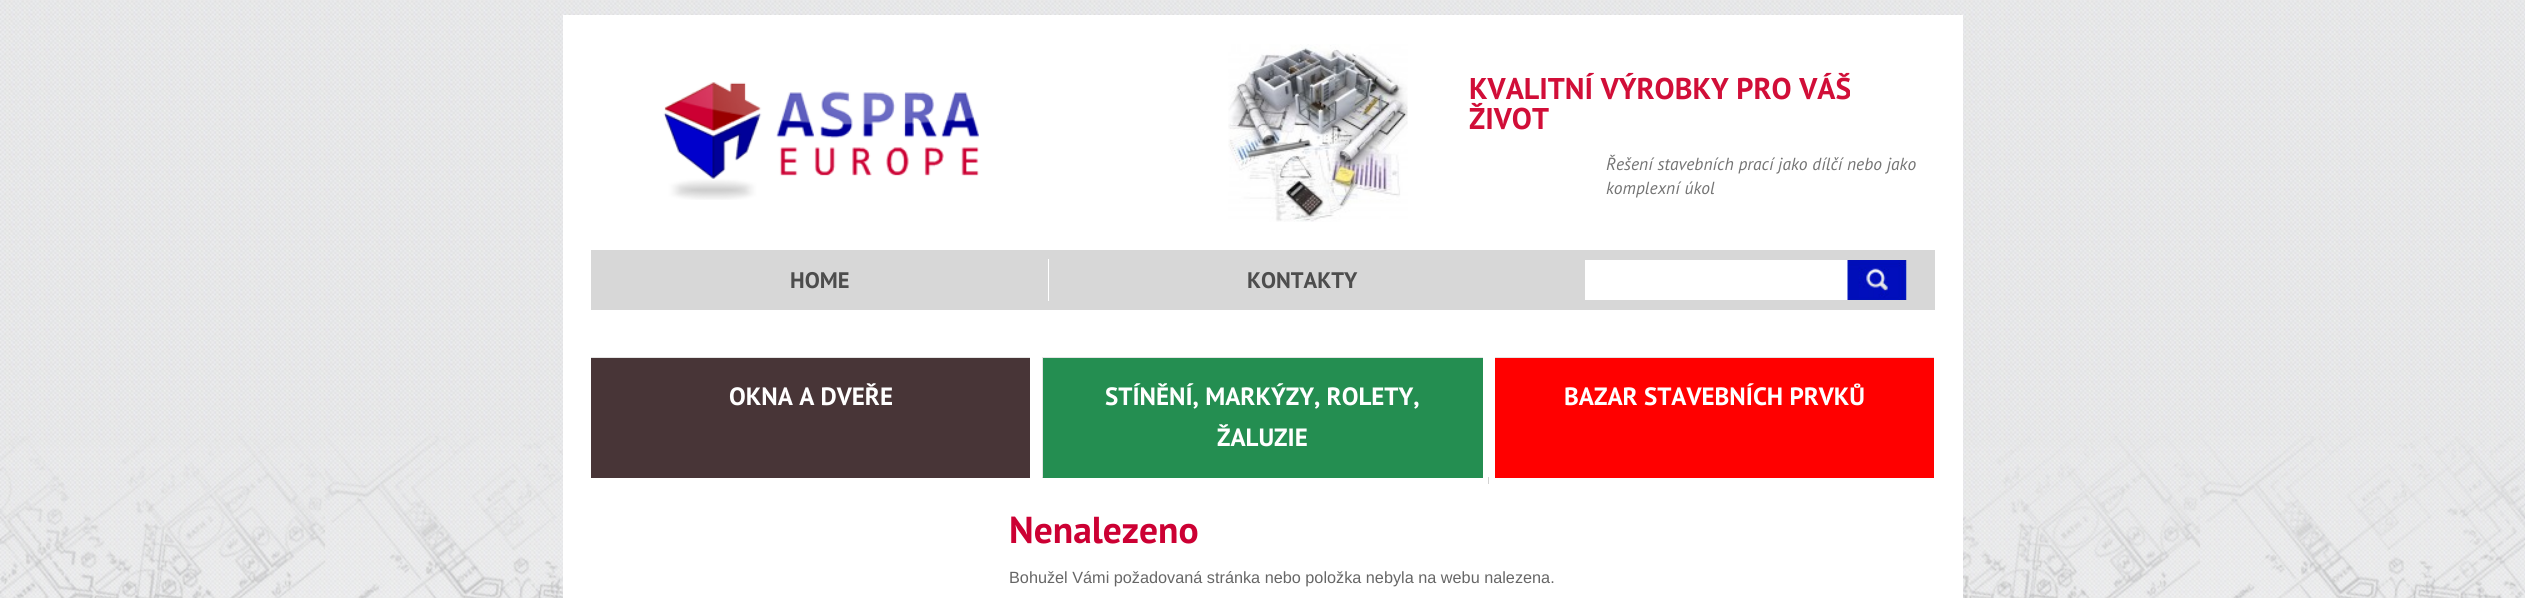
#include <cairo.h>
#include <math.h>
#include <stddef.h>

typedef struct { const char *family; double size; int italic, bold; unsigned color; } style_t;
static cairo_t *ctx;

static void ink(unsigned color) {
    cairo_set_source_rgb(ctx, (color >> 16) / 255.0, (color >> 8 & 255) / 255.0, (color & 255) / 255.0);
}

static void write(double x, double y, const char *s, const style_t *st) {
    cairo_select_font_face(ctx, st->family, st->italic ? CAIRO_FONT_SLANT_ITALIC : CAIRO_FONT_SLANT_NORMAL,
        st->bold ? CAIRO_FONT_WEIGHT_BOLD : CAIRO_FONT_WEIGHT_NORMAL);
    cairo_set_font_size(ctx, st->size);
    ink(st->color);
    cairo_move_to(ctx, x, y);
    cairo_show_text(ctx, s);
}

static void block(double x, double y, double w, double h, unsigned color) {
    ink(color);
    cairo_rectangle(ctx, x, y, w, h);
    cairo_fill(ctx);
}

static void paste(const char *path, double x, double y, double w, double h) {
    cairo_surface_t *image = cairo_image_surface_create_from_png(path);
    cairo_save(ctx);
    cairo_set_source_surface(ctx, image, x, y);
    cairo_rectangle(ctx, x, y, w, h);
    cairo_fill(ctx);
    cairo_restore(ctx);
    cairo_surface_destroy(image);
}

static const style_t s1 = {"PT Sans", 30, 0, 1, 0xd10e38};
static const style_t s2 = {"PT Sans", 17.5, 1, 0, 0x747474};
static const style_t s3 = {"PT Sans", 22.5, 0, 1, 0x4d4d4d};
static const style_t s4 = {"PT Sans", 25, 0, 1, 0xffffff};
static const style_t s5 = {"PT Sans", 37.5, 0, 1, 0xcc0033};
static const style_t s6 = {"Liberation Sans", 16.25, 0, 0, 0x666666};

int main(void) {
    cairo_surface_t *surface = cairo_image_surface_create(CAIRO_FORMAT_RGB24, 2525, 598);
    ctx = cairo_create(surface);
    cairo_font_options_t *options = cairo_font_options_create();
    cairo_font_options_set_hint_metrics(options, CAIRO_HINT_METRICS_OFF);
    cairo_font_options_set_hint_style(options, CAIRO_HINT_STYLE_NONE);
    cairo_set_font_options(ctx, options);
    cairo_set_miter_limit(ctx, 4);
    ink(0xffffff);
    cairo_paint(ctx);
    paste("pic1.png", 0, 0, 2525, 598);
    paste("pic2.png", 0, 436, 2525, 162);
    block(563, 15, 1400, 583, 0xffffff);
    paste("pic3.png", 663, 82, 316, 118);
    paste("pic4.png", 1228, 44, 180, 178);
    write(1469, 99, "KVALITNÍ VÝROBKY PRO VÁŠ", &s1);
    write(1469, 129, "ŽIVOT", &s1);
    write(1606, 170, "Řešení stavebních prací jako dílčí nebo jako", &s2);
    write(1606, 194, "komplexní úkol", &s2);
    block(591, 250, 1344, 60, 0xd7d7d7);
    block(1048, 259, 1, 42, 0xffffff);
    write(790, 288, "HOME", &s3);
    write(1247, 288, "KONTAKTY", &s3);
    block(1585, 260, 263, 40, 0xffffff);
    paste("pic5.png", 1847, 260, 60, 40);
    block(591, 357, 439, 1, 0xe4e4e4);
    block(591, 358, 439, 120, 0x483537);
    write(729, 405, "OKNA A DVEŘE", &s4);
    block(1042, 357, 441, 120, 0xe4e4e4);
    block(1036, 477, 7, 1, 0xd3d3d3);
    cairo_rectangle(ctx, 1039, 354, 447, 127);
    ink(0xffffff);
    cairo_set_line_width(ctx, 6);
    cairo_stroke(ctx);
    block(1043, 358, 440, 120, 0x248e51);
    write(1105, 405, "STÍNĚNÍ, MARKÝZY, ROLETY,", &s4);
    write(1217, 446, "ŽALUZIE", &s4);
    block(1495, 357, 439, 1, 0xe4e4e4);
    block(1488, 477, 1, 7, 0xd3d3d3);
    block(1495, 358, 439, 120, 0xff0000);
    write(1564, 405, "BAZAR STAVEBNÍCH PRVKŮ", &s4);
    write(1009, 543, "Nenalezeno", &s5);
    write(1009, 583, "Bohužel Vámi požadovaná stránka nebo položka nebyla na webu nalezena.", &s6);
    cairo_surface_write_to_png(surface, "screenshot.png");
    cairo_font_options_destroy(options);
    cairo_destroy(ctx);
    cairo_surface_destroy(surface);
    return 0;
}
